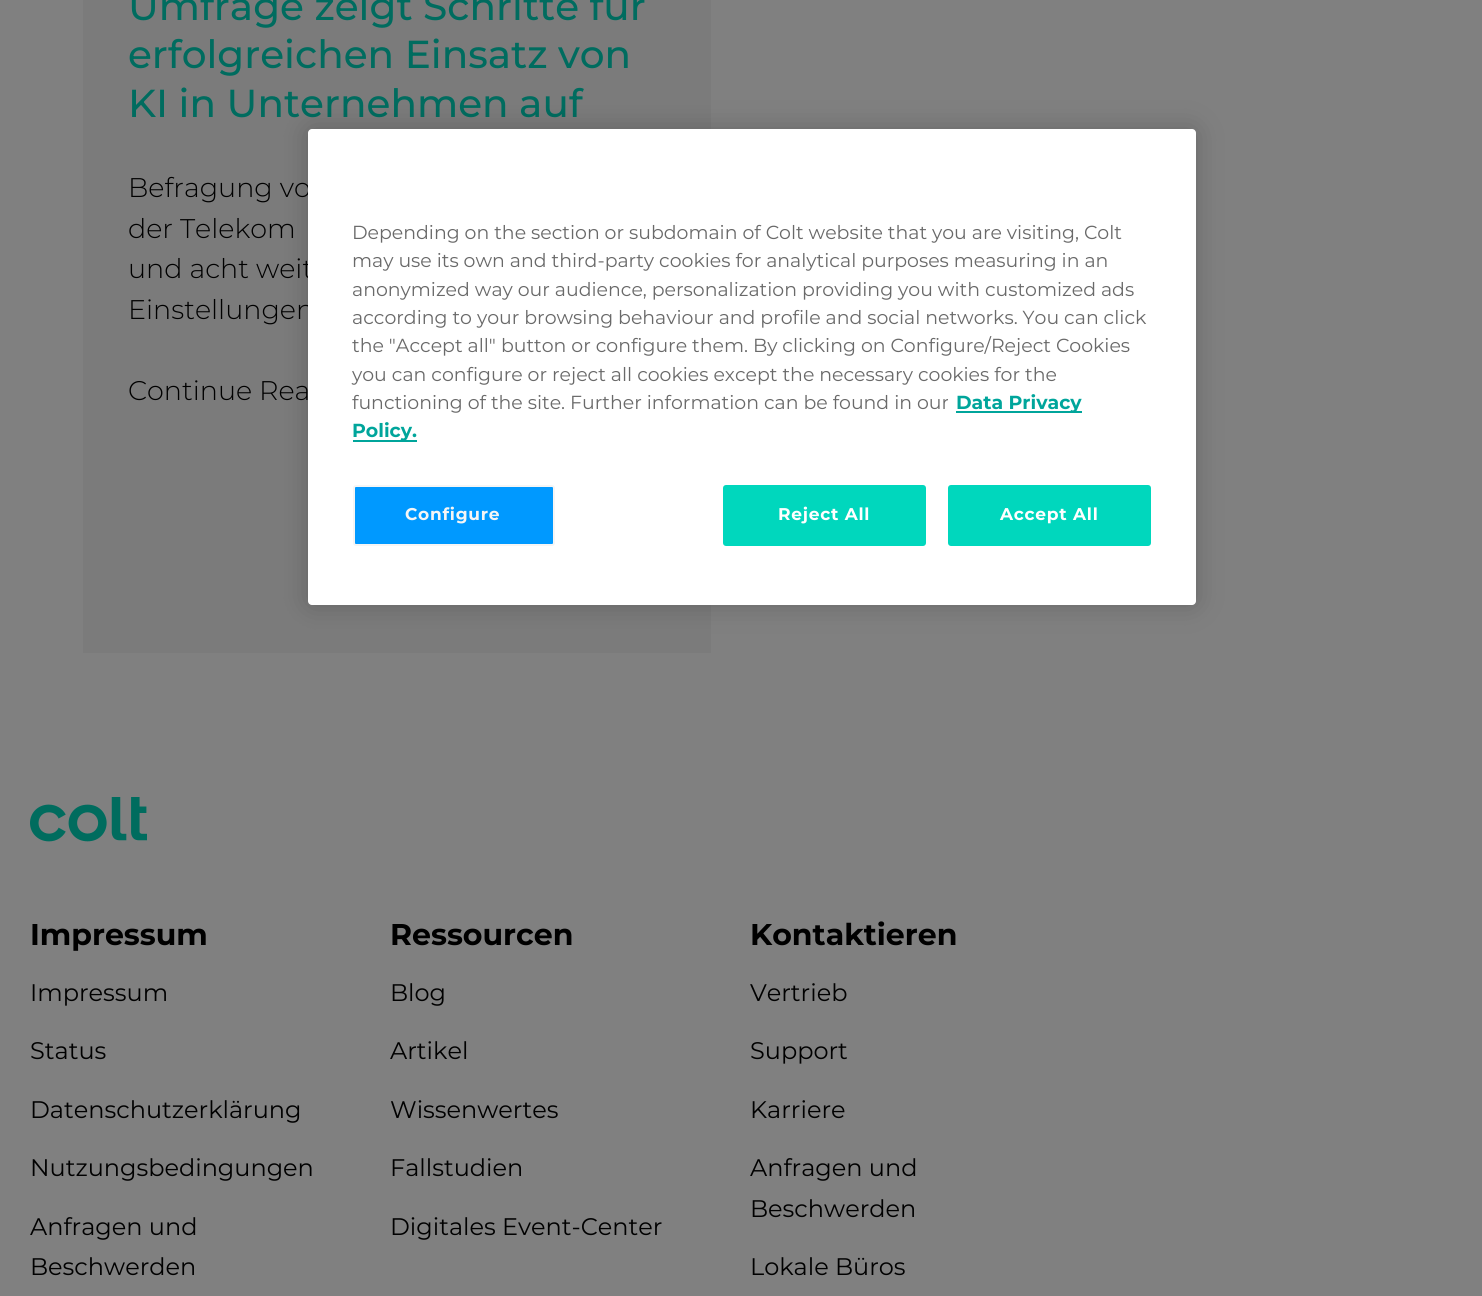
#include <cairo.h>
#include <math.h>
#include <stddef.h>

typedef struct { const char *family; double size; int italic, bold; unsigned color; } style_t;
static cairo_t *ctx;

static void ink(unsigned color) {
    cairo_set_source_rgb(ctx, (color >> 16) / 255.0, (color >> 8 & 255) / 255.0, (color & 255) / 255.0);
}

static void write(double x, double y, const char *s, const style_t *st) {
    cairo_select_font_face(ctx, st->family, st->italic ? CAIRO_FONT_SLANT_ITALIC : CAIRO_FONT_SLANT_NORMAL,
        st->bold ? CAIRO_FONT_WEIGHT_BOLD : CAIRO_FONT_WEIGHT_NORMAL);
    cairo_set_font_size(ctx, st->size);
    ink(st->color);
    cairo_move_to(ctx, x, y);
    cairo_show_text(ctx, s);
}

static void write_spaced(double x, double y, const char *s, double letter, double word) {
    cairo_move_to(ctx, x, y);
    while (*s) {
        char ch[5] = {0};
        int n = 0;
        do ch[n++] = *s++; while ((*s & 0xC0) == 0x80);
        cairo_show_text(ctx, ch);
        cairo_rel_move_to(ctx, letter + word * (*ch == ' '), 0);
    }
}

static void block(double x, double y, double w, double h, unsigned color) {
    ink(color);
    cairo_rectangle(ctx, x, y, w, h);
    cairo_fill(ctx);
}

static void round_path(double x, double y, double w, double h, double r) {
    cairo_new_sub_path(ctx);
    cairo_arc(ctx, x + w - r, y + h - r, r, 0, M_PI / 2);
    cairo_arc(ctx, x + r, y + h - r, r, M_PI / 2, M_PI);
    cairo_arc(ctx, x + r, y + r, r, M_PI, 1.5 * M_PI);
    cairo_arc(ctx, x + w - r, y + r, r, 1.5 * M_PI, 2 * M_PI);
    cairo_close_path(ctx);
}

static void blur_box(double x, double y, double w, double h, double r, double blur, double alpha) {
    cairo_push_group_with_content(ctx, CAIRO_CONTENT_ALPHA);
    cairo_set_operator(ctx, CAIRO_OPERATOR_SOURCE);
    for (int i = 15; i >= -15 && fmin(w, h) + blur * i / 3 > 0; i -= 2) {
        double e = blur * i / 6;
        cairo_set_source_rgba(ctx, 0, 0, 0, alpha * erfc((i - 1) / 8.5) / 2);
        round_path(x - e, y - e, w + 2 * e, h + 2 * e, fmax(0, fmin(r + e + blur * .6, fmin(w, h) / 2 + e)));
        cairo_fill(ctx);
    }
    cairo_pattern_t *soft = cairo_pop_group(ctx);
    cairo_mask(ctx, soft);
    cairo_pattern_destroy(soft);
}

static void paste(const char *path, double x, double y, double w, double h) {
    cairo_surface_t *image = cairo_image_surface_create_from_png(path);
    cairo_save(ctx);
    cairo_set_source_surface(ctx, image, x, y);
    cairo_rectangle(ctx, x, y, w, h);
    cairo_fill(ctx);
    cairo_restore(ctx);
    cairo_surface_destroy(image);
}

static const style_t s1 = {"Montserrat Medium", 39, 0, 0, 0x006c5f};
static const style_t s2 = {"Montserrat Light", 27, 0, 0, 0x000000};
static const style_t s3 = {"Montserrat", 30, 0, 1, 0x000000};
static const style_t s4 = {"Montserrat", 24, 0, 0, 0x000000};
static const style_t s5 = {"Montserrat", 18.9, 0, 0, 0x696969};
static const style_t s6 = {"Montserrat", 18.9, 0, 1, 0x00a59b};

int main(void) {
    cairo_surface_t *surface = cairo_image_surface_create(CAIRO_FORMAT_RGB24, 1482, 1296);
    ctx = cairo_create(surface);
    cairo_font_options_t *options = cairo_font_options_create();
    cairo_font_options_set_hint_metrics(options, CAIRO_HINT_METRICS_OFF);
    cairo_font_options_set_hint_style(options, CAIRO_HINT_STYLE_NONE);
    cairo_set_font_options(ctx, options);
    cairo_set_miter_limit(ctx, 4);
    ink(0x808080);
    cairo_paint(ctx);
    block(83, 0, 628, 653, 0x7b7b7b);
    write(128, 20, "Umfrage zeigt Schritte für", &s1);
    write(128, 68, "erfolgreichen Einsatz von", &s1);
    write(128, 117, "KI in Unternehmen auf", &s1);
    write(128, 197, "Befragung vo", &s2);
    write(128, 238, "der Telekom", &s2);
    write(128, 278, "und acht weit", &s2);
    write(128, 319, "Einstellungen", &s2);
    write(128, 400, "Continue Rea", &s2);
    paste("pic1.png", 30, 797, 117, 45);
    write(30, 945, "Impressum", &s3);
    write(30, 1001, "Impressum", &s4);
    write(30, 1059, "Status", &s4);
    write(30, 1118, "Datenschutzerklärung", &s4);
    write(30, 1176, "Nutzungsbedingungen", &s4);
    write(30, 1235, "Anfragen und", &s4);
    write(30, 1275, "Beschwerden", &s4);
    write(390, 945, "Ressourcen", &s3);
    write(390, 1001, "Blog", &s4);
    write(390, 1059, "Artikel", &s4);
    write(390, 1118, "Wissenwertes", &s4);
    write(390, 1176, "Fallstudien", &s4);
    write(390, 1235, "Digitales Event-Center", &s4);
    write(750, 945, "Kontaktieren", &s3);
    write(750, 1001, "Vertrieb", &s4);
    write(750, 1059, "Support", &s4);
    write(750, 1118, "Karriere", &s4);
    write(750, 1176, "Anfragen und", &s4);
    write(750, 1217, "Beschwerden", &s4);
    write(750, 1275, "Lokale Büros", &s4);
    ink(0x000000);
    blur_box(308, 129, 888, 476, 4, 13.5, 0.2);
    ink(0xffffff);
    round_path(308, 129, 888, 476, 4);
    cairo_fill(ctx);
    write(352, 239, "Depending on the section or subdomain of Colt website that you are visiting, Colt", &s5);
    write(352, 267, "may use its own and third-party cookies for analytical purposes measuring in an", &s5);
    write(352, 296, "anonymized way our audience, personalization providing you with customized ads", &s5);
    write(352, 324, "according to your browsing behaviour and profile and social networks. You can click", &s5);
    write(352, 352, "the \"Accept all\" button or configure them. By clicking on Configure/Reject Cookies", &s5);
    write(352, 381, "you can configure or reject all cookies except the necessary cookies for the", &s5);
    write(352, 409, "functioning of the site. Further information can be found in our", &s5);
    block(956, 411, 126, 2, 0x00a59b);
    write(956, 409, "Data Privacy", &s6);
    block(353, 440, 64, 2, 0x00a59b);
    write(352, 437, "Policy.", &s6);
    ink(0x0099ff);
    round_path(354, 486, 200, 59, 2);
    cairo_fill_preserve(ctx);
    ink(0xf5f5f5);
    cairo_stroke(ctx);
    cairo_set_font_size(ctx, 17);
    write_spaced(405, 520, "Configure", 0.75, 0);
    ink(0x00d7bd);
    round_path(724, 486, 201, 59, 2);
    cairo_fill_preserve(ctx);
    cairo_stroke(ctx);
    ink(0xffffff);
    write_spaced(778, 520, "Reject All", 0.75, 0);
    ink(0x00d7bd);
    round_path(949, 486, 201, 59, 2);
    cairo_fill_preserve(ctx);
    cairo_stroke(ctx);
    ink(0xffffff);
    write_spaced(1000, 520, "Accept All", 0.75, 0);
    cairo_surface_write_to_png(surface, "screenshot.png");
    cairo_font_options_destroy(options);
    cairo_destroy(ctx);
    cairo_surface_destroy(surface);
    return 0;
}
